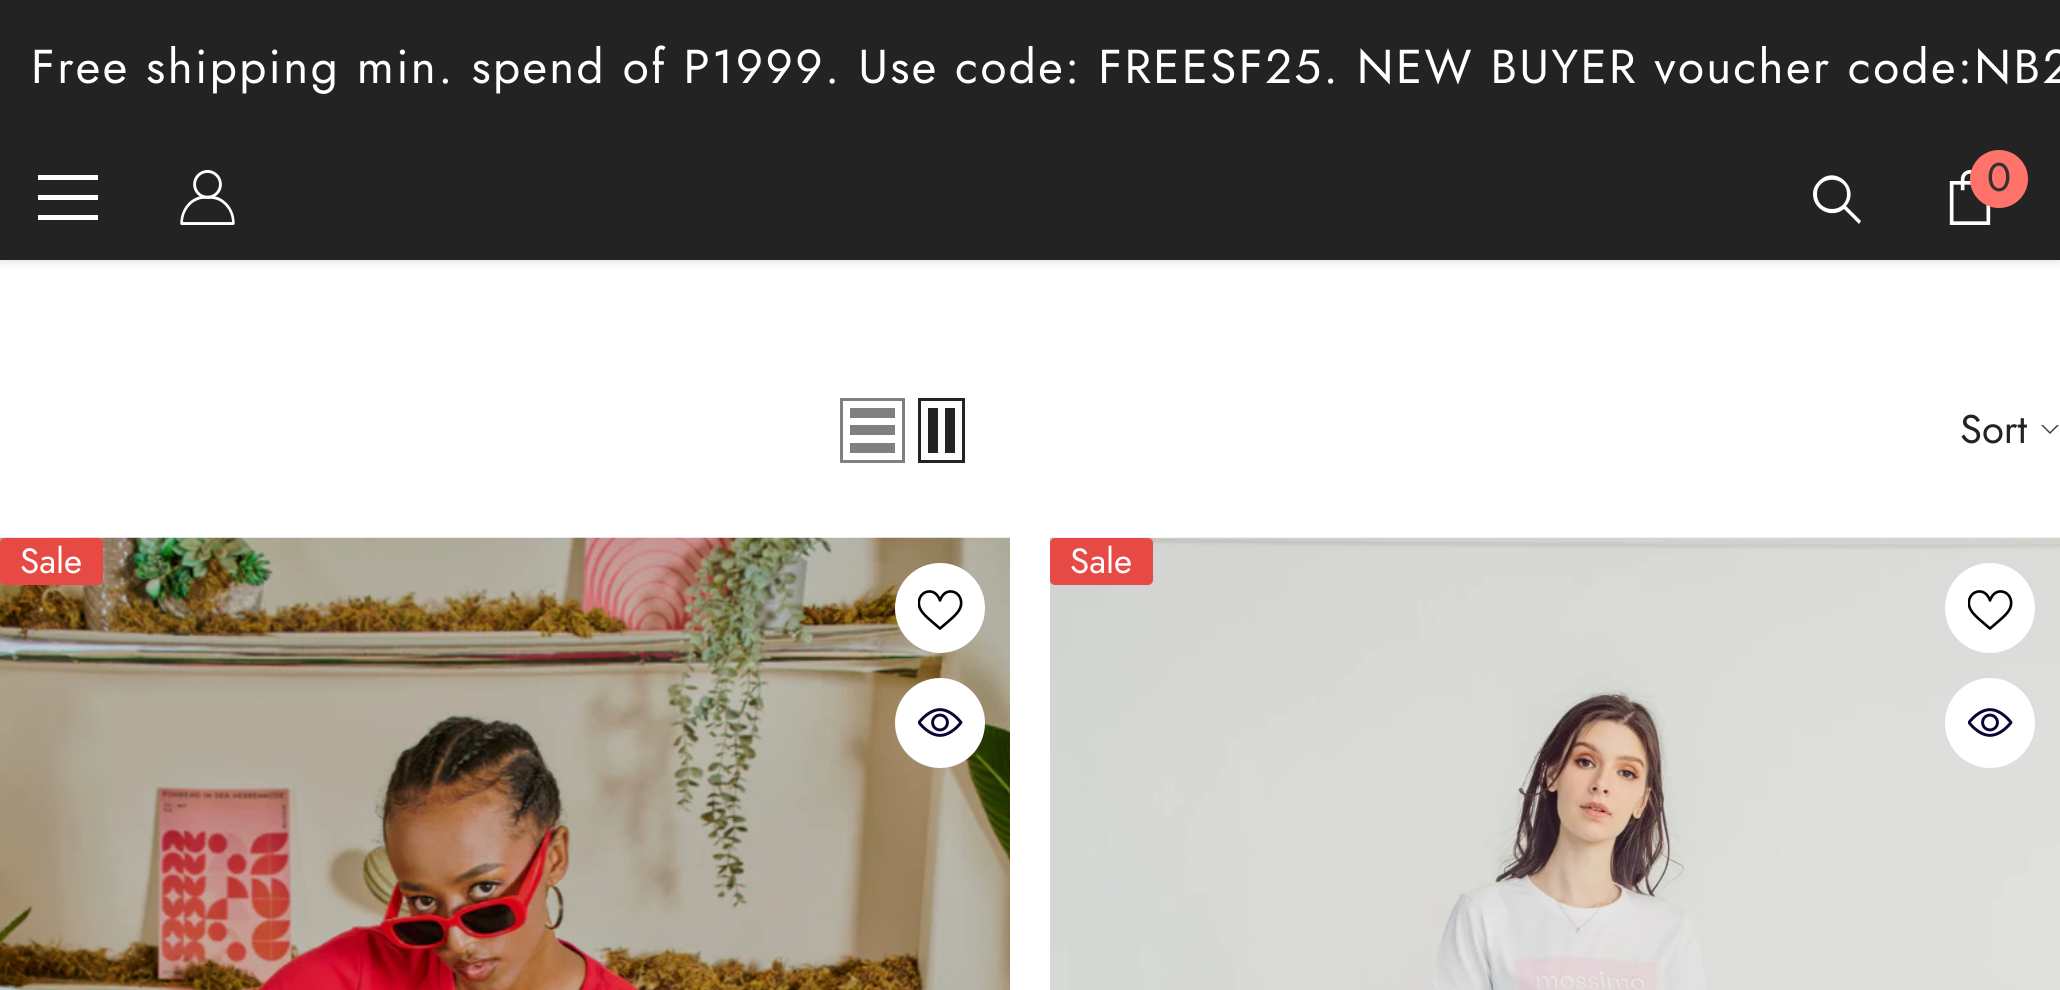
#include <cairo.h>
#include <math.h>
#include <stddef.h>

typedef struct { const char *family; double size; int italic, bold; unsigned color; } style_t;
static cairo_t *ctx;

static void ink(unsigned color) {
    cairo_set_source_rgb(ctx, (color >> 16) / 255.0, (color >> 8 & 255) / 255.0, (color & 255) / 255.0);
}

static void write(double x, double y, const char *s, const style_t *st) {
    cairo_select_font_face(ctx, st->family, st->italic ? CAIRO_FONT_SLANT_ITALIC : CAIRO_FONT_SLANT_NORMAL,
        st->bold ? CAIRO_FONT_WEIGHT_BOLD : CAIRO_FONT_WEIGHT_NORMAL);
    cairo_set_font_size(ctx, st->size);
    ink(st->color);
    cairo_move_to(ctx, x, y);
    cairo_show_text(ctx, s);
}

static void write_spaced(double x, double y, const char *s, double letter, double word) {
    cairo_move_to(ctx, x, y);
    while (*s) {
        char ch[5] = {0};
        int n = 0;
        do ch[n++] = *s++; while ((*s & 0xC0) == 0x80);
        cairo_show_text(ctx, ch);
        cairo_rel_move_to(ctx, letter + word * (*ch == ' '), 0);
    }
}

static void block(double x, double y, double w, double h, unsigned color) {
    ink(color);
    cairo_rectangle(ctx, x, y, w, h);
    cairo_fill(ctx);
}

static void round_path(double x, double y, double w, double h, double r) {
    cairo_new_sub_path(ctx);
    cairo_arc(ctx, x + w - r, y + h - r, r, 0, M_PI / 2);
    cairo_arc(ctx, x + r, y + h - r, r, M_PI / 2, M_PI);
    cairo_arc(ctx, x + r, y + r, r, M_PI, 1.5 * M_PI);
    cairo_arc(ctx, x + w - r, y + r, r, 1.5 * M_PI, 2 * M_PI);
    cairo_close_path(ctx);
}

static void blur_box(double x, double y, double w, double h, double r, double blur, double alpha) {
    cairo_push_group_with_content(ctx, CAIRO_CONTENT_ALPHA);
    cairo_set_operator(ctx, CAIRO_OPERATOR_SOURCE);
    for (int i = 15; i >= -15 && fmin(w, h) + blur * i / 3 > 0; i -= 2) {
        double e = blur * i / 6;
        cairo_set_source_rgba(ctx, 0, 0, 0, alpha * erfc((i - 1) / 8.5) / 2);
        round_path(x - e, y - e, w + 2 * e, h + 2 * e, fmax(0, fmin(r + e + blur * .6, fmin(w, h) / 2 + e)));
        cairo_fill(ctx);
    }
    cairo_pattern_t *soft = cairo_pop_group(ctx);
    cairo_mask(ctx, soft);
    cairo_pattern_destroy(soft);
}

static void paste(const char *path, double x, double y, double w, double h) {
    cairo_surface_t *image = cairo_image_surface_create_from_png(path);
    cairo_save(ctx);
    cairo_set_source_surface(ctx, image, x, y);
    cairo_rectangle(ctx, x, y, w, h);
    cairo_fill(ctx);
    cairo_restore(ctx);
    cairo_surface_destroy(image);
}

static const style_t s1 = {"Jost", 40, 0, 0, 0x323232};
static const style_t s2 = {"Jost", 40, 0, 0, 0x232323};
static const style_t s3 = {"Jost", 35, 0, 0, 0xffffff};

int main(void) {
    cairo_surface_t *surface = cairo_image_surface_create(CAIRO_FORMAT_RGB24, 2060, 990);
    ctx = cairo_create(surface);
    cairo_font_options_t *options = cairo_font_options_create();
    cairo_font_options_set_hint_metrics(options, CAIRO_HINT_METRICS_OFF);
    cairo_font_options_set_hint_style(options, CAIRO_HINT_STYLE_NONE);
    cairo_set_font_options(ctx, options);
    cairo_set_miter_limit(ctx, 4);
    ink(0xffffff);
    cairo_paint(ctx);
    block(0, 0, 2060, 135, 0x232323);
    cairo_select_font_face(ctx, "Jost", CAIRO_FONT_SLANT_NORMAL, CAIRO_FONT_WEIGHT_NORMAL);
    cairo_set_font_size(ctx, 47.5);
    ink(0xffffff);
    write_spaced(31, 83, "Free shipping min. spend of P1999. Use code: FREESF25. NEW BUYER voucher code:NB2", 2.38, 0);
    ink(0x000000);
    blur_box(0, 138, 2060, 125, 0, 4, 0.1);
    block(0, 135, 2060, 125, 0x232323);
    block(38, 195, 60, 5, 0xffffff);
    block(38, 175, 60, 5, 0xffffff);
    block(38, 215, 60, 5, 0xffffff);
    paste("pic1.png", 180, 170, 55, 55);
    cairo_new_path(ctx);
    cairo_move_to(ctx, 1813, 194);
    cairo_curve_to(ctx, 1813, 210, 1832, 219, 1844, 209);
    cairo_line_to(ctx, 1859, 224);
    cairo_line_to(ctx, 1861, 221);
    cairo_line_to(ctx, 1846, 206);
    cairo_curve_to(ctx, 1861, 189, 1836, 164, 1819, 181);
    cairo_curve_to(ctx, 1815, 185, 1813, 189, 1813, 194);
    cairo_close_path(ctx);
    cairo_move_to(ctx, 1817, 194);
    cairo_curve_to(ctx, 1817, 175, 1847, 175, 1847, 194);
    cairo_curve_to(ctx, 1847, 214, 1817, 214, 1817, 194);
    cairo_close_path(ctx);
    cairo_fill(ctx);
    paste("pic2.png", 1949, 170, 42, 55);
    ink(0xff736b);
    cairo_arc(ctx, 1999, 179, 29, 0, 2 * M_PI);
    cairo_fill(ctx);
    write(1987, 191, "0", &s1);
    cairo_rectangle(ctx, 841.5, 399.5, 62, 62);
    ink(0x808080);
    cairo_set_line_width(ctx, 3);
    cairo_stroke(ctx);
    block(850, 443, 45, 10, 0x808080);
    block(850, 425, 45, 10, 0x808080);
    block(850, 408, 45, 10, 0x808080);
    cairo_rectangle(ctx, 919.5, 399.5, 44, 62);
    ink(0x232323);
    cairo_stroke(ctx);
    block(945, 408, 10, 45, 0x232323);
    block(928, 408, 10, 45, 0x232323);
    write(1960, 443, "Sort", &s2);
    cairo_save(ctx);
    cairo_rectangle(ctx, 2040, 425, 20, 13);
    cairo_clip(ctx);
    ink(0x3c3c3c);
    cairo_new_path(ctx);
    cairo_move_to(ctx, 2050, 432);
    cairo_line_to(ctx, 2042, 424);
    cairo_line_to(ctx, 2040, 424);
    cairo_line_to(ctx, 2050, 434);
    cairo_line_to(ctx, 2060, 424);
    cairo_line_to(ctx, 2058, 424);
    cairo_close_path(ctx);
    cairo_fill(ctx);
    cairo_restore(ctx);
    paste("pic3.png", 0, 537, 1010, 453);
    ink(0xe74a45);
    round_path(0, 538, 103, 47, 5);
    cairo_fill(ctx);
    write(20, 573, "Sale", &s3);
    cairo_new_path(ctx);
    cairo_arc(ctx, 940, 608, 45, 0, 2 * M_PI);
    cairo_fill(ctx);
    paste("pic4.png", 918, 590, 45, 40);
    cairo_arc(ctx, 940, 723, 45, 0, 2 * M_PI);
    cairo_fill(ctx);
    paste("pic5.png", 918, 708, 45, 29);
    paste("pic6.png", 1050, 537, 1010, 453);
    ink(0xe74a45);
    round_path(1050, 538, 103, 47, 5);
    cairo_fill(ctx);
    write(1070, 573, "Sale", &s3);
    cairo_new_path(ctx);
    cairo_arc(ctx, 1990, 608, 45, 0, 2 * M_PI);
    cairo_fill(ctx);
    paste("pic4.png", 1968, 590, 45, 40);
    cairo_arc(ctx, 1990, 723, 45, 0, 2 * M_PI);
    cairo_fill(ctx);
    paste("pic5.png", 1968, 708, 45, 29);
    cairo_surface_write_to_png(surface, "screenshot.png");
    cairo_font_options_destroy(options);
    cairo_destroy(ctx);
    cairo_surface_destroy(surface);
    return 0;
}
